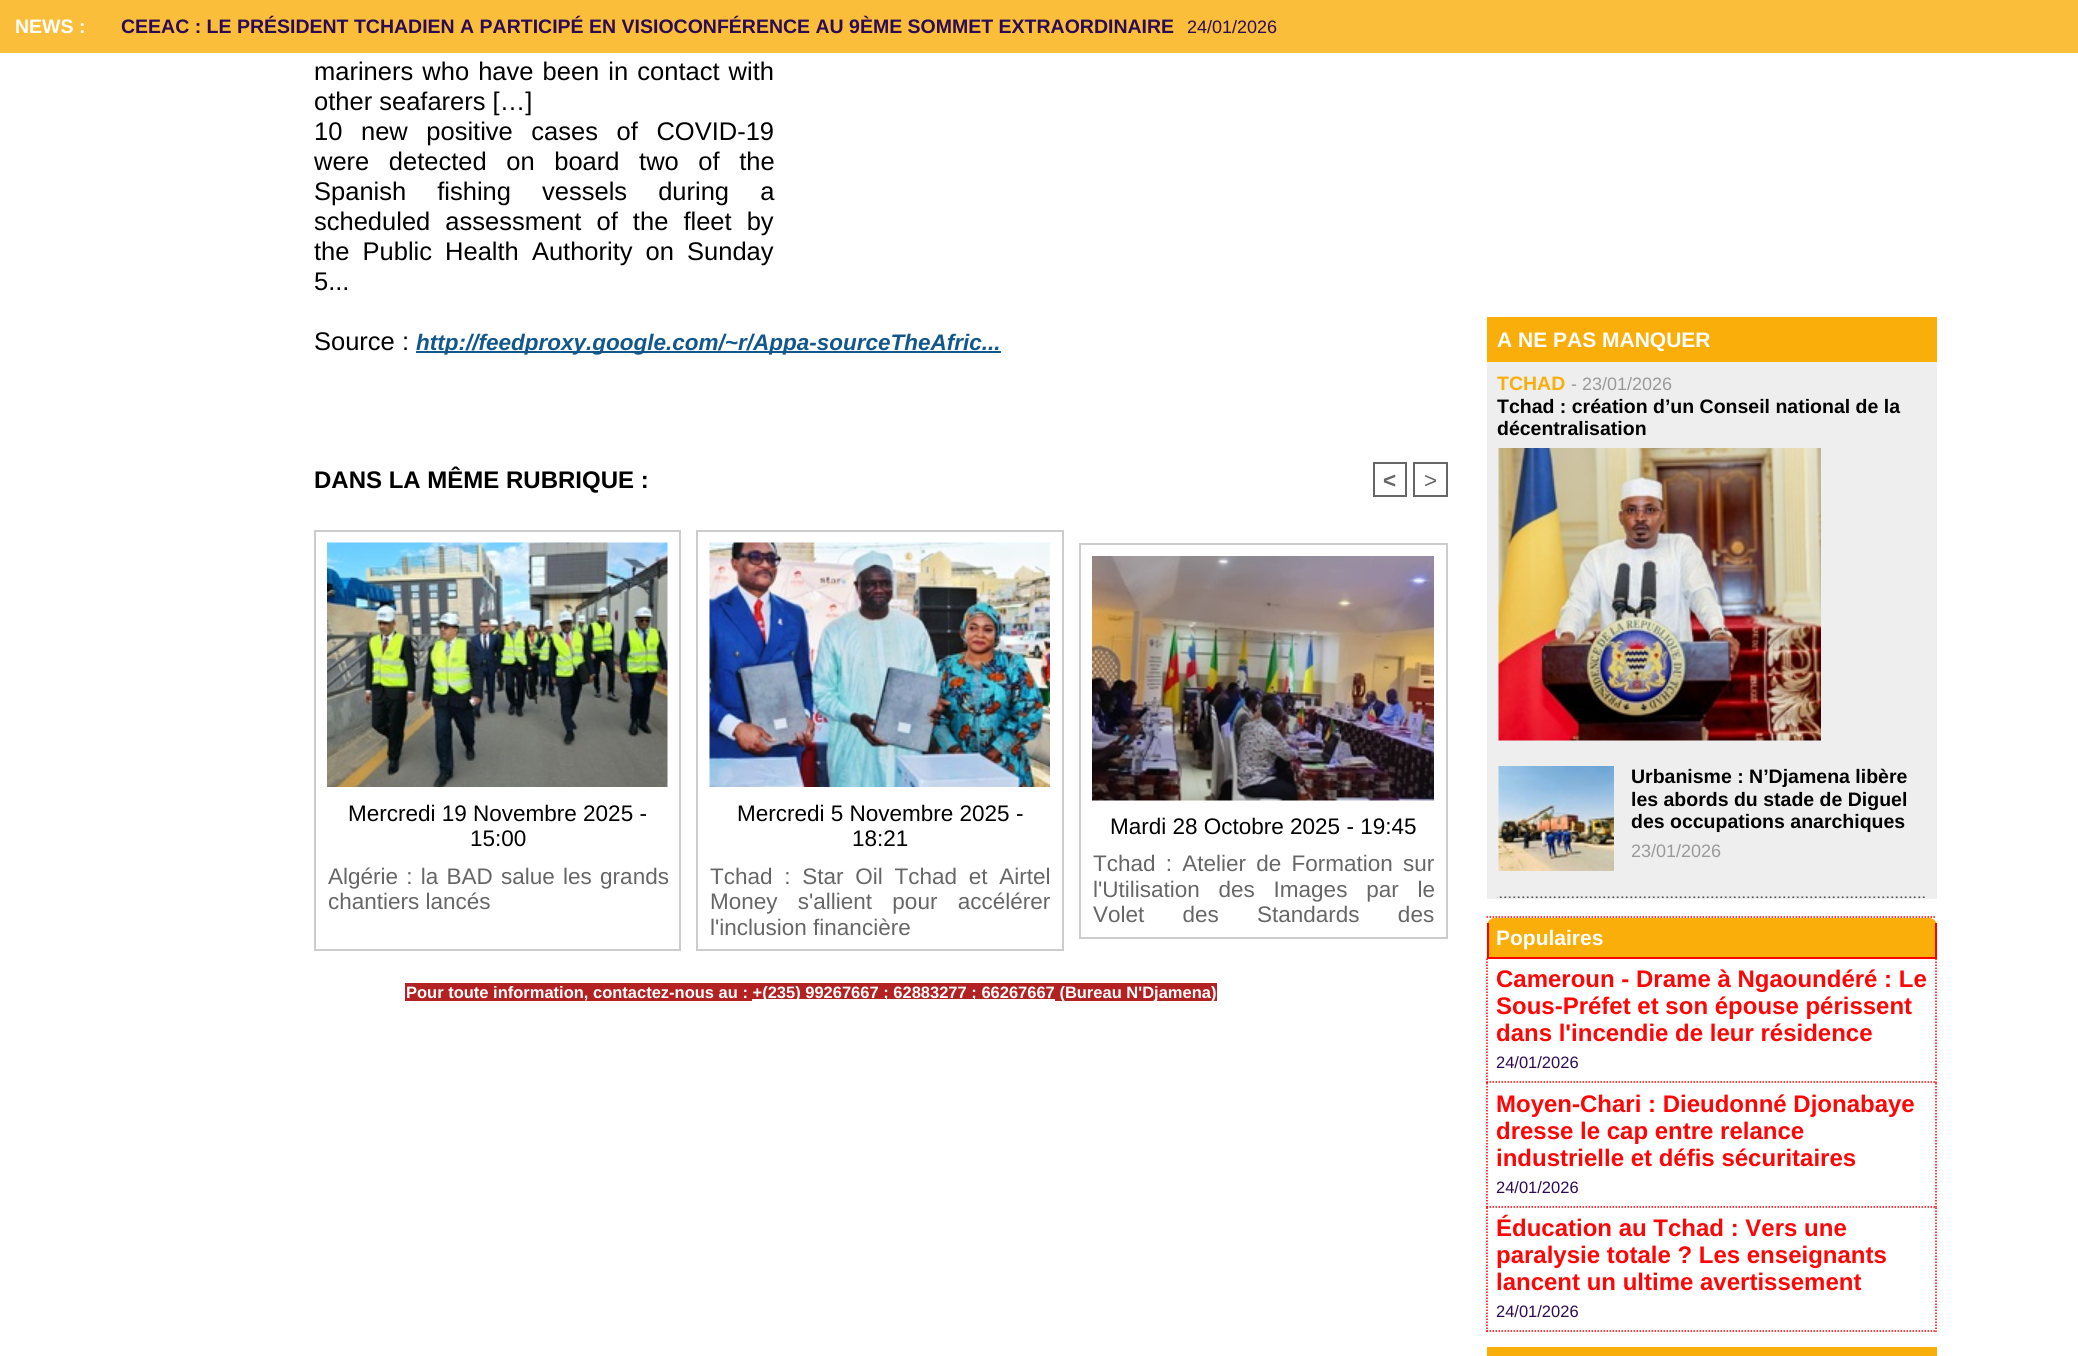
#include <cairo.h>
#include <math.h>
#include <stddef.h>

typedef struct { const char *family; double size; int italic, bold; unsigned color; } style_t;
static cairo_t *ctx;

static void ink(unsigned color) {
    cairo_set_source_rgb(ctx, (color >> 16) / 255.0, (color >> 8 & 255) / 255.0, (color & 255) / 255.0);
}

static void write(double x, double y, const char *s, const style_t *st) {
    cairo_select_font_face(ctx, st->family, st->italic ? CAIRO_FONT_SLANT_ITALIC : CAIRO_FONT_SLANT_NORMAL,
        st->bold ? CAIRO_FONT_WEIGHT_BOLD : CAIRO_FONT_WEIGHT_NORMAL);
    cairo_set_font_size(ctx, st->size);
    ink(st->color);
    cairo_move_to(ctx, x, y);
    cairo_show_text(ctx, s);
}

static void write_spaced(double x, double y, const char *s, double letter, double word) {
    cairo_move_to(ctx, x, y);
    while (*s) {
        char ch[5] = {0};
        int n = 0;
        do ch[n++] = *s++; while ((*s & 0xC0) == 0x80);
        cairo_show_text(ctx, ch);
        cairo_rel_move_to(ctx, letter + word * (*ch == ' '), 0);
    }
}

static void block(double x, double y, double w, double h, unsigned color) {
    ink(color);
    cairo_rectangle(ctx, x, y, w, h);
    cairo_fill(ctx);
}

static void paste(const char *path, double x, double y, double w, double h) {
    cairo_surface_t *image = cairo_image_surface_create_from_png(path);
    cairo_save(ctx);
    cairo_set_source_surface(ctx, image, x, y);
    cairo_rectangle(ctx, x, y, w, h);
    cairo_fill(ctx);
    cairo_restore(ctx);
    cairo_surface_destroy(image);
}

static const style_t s1 = {"Liberation Sans", 19.5, 0, 1, 0xffffff};
static const style_t s2 = {"Liberation Sans", 19.5, 0, 1, 0x2c0a54};
static const style_t s3 = {"Liberation Sans", 18, 0, 0, 0x2c0a54};
static const style_t s4 = {"Liberation Sans", 25.5, 0, 0, 0x000000};
static const style_t s5 = {"Liberation Sans", 22.5, 1, 1, 0x12578c};
static const style_t s6 = {"Liberation Sans", 24, 0, 1, 0x000000};
static const style_t s7 = {"Liberation Sans", 22.5, 0, 1, 0x666666};
static const style_t s8 = {"Liberation Sans", 22.5, 0, 0, 0x666666};
static const style_t s9 = {"Liberation Sans", 22.5, 0, 0, 0x000000};
static const style_t s10 = {"Liberation Sans", 16.5, 0, 1, 0xffffff};
static const style_t s11 = {"Liberation Sans", 21, 0, 1, 0xffffff};
static const style_t s12 = {"Liberation Sans", 19.5, 0, 1, 0xfaae0a};
static const style_t s13 = {"Liberation Sans", 18, 0, 0, 0x999999};
static const style_t s14 = {"Liberation Sans", 19.5, 0, 1, 0x000000};
static const style_t s15 = {"Liberation Sans", 24, 0, 1, 0xff0505};
static const style_t s16 = {"Liberation Sans", 16.5, 0, 0, 0x2c0a54};

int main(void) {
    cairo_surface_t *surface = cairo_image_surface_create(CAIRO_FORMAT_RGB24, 2078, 1356);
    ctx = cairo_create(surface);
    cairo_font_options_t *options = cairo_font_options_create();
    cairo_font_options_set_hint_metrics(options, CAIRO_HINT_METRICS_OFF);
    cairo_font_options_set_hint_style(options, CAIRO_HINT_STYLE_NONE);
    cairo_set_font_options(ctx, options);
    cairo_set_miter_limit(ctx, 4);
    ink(0xffffff);
    cairo_paint(ctx);
    cairo_set_source_rgba(ctx, 0.98, 0.682, 0.039, 0.8);
    cairo_rectangle(ctx, 0, 0, 2078, 53);
    cairo_fill(ctx);
    write(15, 33, "NEWS :", &s1);
    write(121, 33, "CEEAC : LE PRÉSIDENT TCHADIEN A PARTICIPÉ EN VISIOCONFÉRENCE AU 9ÈME SOMMET EXTRAORDINAIRE", &s2);
    write(1187, 33, "24/01/2026", &s3);
    cairo_set_font_size(ctx, 25.5);
    ink(0x000000);
    write_spaced(314, 80, "mariners who have been in contact with", 0, 2);
    write(314, 110, "other seafarers […]", &s4);
    write_spaced(314, 140, "10 new positive cases of COVID-19", 0, 11.5);
    write_spaced(314, 170, "were detected on board two of the", 0, 12.5);
    write_spaced(314, 200, "Spanish fishing vessels during a", 0, 24);
    write_spaced(314, 230, "scheduled assessment of the fleet by", 0, 8);
    write_spaced(314, 260, "the Public Health Authority on Sunday", 0, 6);
    write(314, 290, "5...", &s4);
    write(314, 350, "Source :", &s4);
    block(416, 351, 585, 2, 0x12578c);
    write(416, 350, "http://feedproxy.google.com/~r/Appa-sourceTheAfric...", &s5);
    write(314, 488, "DANS LA MÊME RUBRIQUE :", &s6);
    cairo_rectangle(ctx, 1374, 463, 32, 33);
    ink(0x666666);
    cairo_stroke(ctx);
    write(1383, 488, "<", &s7);
    cairo_rectangle(ctx, 1414, 463, 33, 33);
    cairo_stroke(ctx);
    write(1424, 488, ">", &s8);
    cairo_rectangle(ctx, 315, 531, 365, 419);
    ink(0xcccccc);
    cairo_stroke(ctx);
    paste("pic1.png", 327, 542, 341, 245);
    write(348, 821, "Mercredi 19 Novembre 2025 -", &s9);
    write(470, 846, "15:00", &s9);
    ink(0x666666);
    write_spaced(328, 884, "Algérie : la BAD salue les grands", 0, 2);
    write(328, 909, "chantiers lancés", &s8);
    cairo_rectangle(ctx, 697, 531, 366, 419);
    ink(0xcccccc);
    cairo_stroke(ctx);
    paste("pic2.png", 709, 542, 341, 245);
    write(737, 821, "Mercredi 5 Novembre 2025 -", &s9);
    write(852, 846, "18:21", &s9);
    ink(0x666666);
    write_spaced(710, 884, "Tchad : Star Oil Tchad et Airtel", 0, 5.5);
    write_spaced(710, 909, "Money s'allient pour accélérer", 0, 14);
    write(710, 935, "l'inclusion financière", &s8);
    cairo_rectangle(ctx, 1080, 544, 367, 394);
    ink(0xcccccc);
    cairo_stroke(ctx);
    paste("pic3.png", 1092, 556, 342, 245);
    write(1110, 834, "Mardi 28 Octobre 2025 - 19:45", &s9);
    ink(0x666666);
    write_spaced(1093, 871, "Tchad : Atelier de Formation sur", 0, 4);
    write_spaced(1093, 897, "l'Utilisation des Images par le", 0, 12.5);
    write_spaced(1093, 922, "Volet des Standards des", 0, 32);
    block(405, 983, 347, 18, 0xb22222);
    block(752, 983, 303, 16, 0xb22222);
    block(1055, 983, 162, 18, 0xb22222);
    write(406, 998, "Pour toute information, contactez-nous au : +(235) 99267667 ; 62883277 ; 66267667 (Bureau N'Djamena)", &s10);
    block(1487, 317, 450, 45, 0xfaae0a);
    write(1497, 347, "A NE PAS MANQUER", &s11);
    block(1487, 362, 450, 537, 0xeeeeee);
    write(1497, 390, "TCHAD", &s12);
    write(1571, 390, "- 23/01/2026", &s13);
    write(1497, 413, "Tchad : création d’un Conseil national de la", &s14);
    write(1497, 435, "décentralisation", &s14);
    paste("pic4.png", 1498, 448, 323, 293);
    paste("pic5.png", 1498, 766, 116, 105);
    write(1631, 783, "Urbanisme : N’Djamena libère", &s14);
    write(1631, 806, "les abords du stade de Diguel", &s14);
    write(1631, 828, "des occupations anarchiques", &s14);
    write(1631, 857, "23/01/2026", &s13);
    paste("pic6.png", 1497, 896, 428, 2);
    cairo_new_path(ctx);
    cairo_move_to(ctx, 1486.5, 917);
    cairo_line_to(ctx, 1936.5, 917);
    ink(0xff0000);
    cairo_set_line_width(ctx, 1.5);
    cairo_set_dash(ctx, (double[]){1.5, 1.5}, 2, 0);
    cairo_stroke(ctx);
    ink(0xfaae0a);
    cairo_new_path(ctx);
    cairo_move_to(ctx, 1495, 918);
    cairo_line_to(ctx, 1929, 918);
    cairo_curve_to(ctx, 1933.5, 918, 1937, 921.5, 1937, 926);
    cairo_line_to(ctx, 1937, 959);
    cairo_line_to(ctx, 1487, 959);
    cairo_line_to(ctx, 1487, 926);
    cairo_curve_to(ctx, 1487, 921.5, 1490.5, 918, 1495, 918);
    cairo_close_path(ctx);
    cairo_fill(ctx);
    block(1935, 923, 2, 36, 0xff0000);
    block(1487, 957, 450, 2, 0xff0000);
    block(1487, 923, 2, 36, 0xff0000);
    write(1496, 945, "Populaires", &s11);
    cairo_new_path(ctx);
    cairo_move_to(ctx, 1936, 958.5);
    cairo_line_to(ctx, 1936, 1083);
    ink(0xff0000);
    cairo_stroke(ctx);
    cairo_new_path(ctx);
    cairo_move_to(ctx, 1486.5, 1082);
    cairo_line_to(ctx, 1936.5, 1082);
    cairo_stroke(ctx);
    cairo_new_path(ctx);
    cairo_move_to(ctx, 1487, 958.5);
    cairo_line_to(ctx, 1487, 1083);
    cairo_stroke(ctx);
    write(1496, 987, "Cameroun - Drame à Ngaoundéré : Le", &s15);
    write(1496, 1014, "Sous-Préfet et son épouse périssent", &s15);
    write(1496, 1041, "dans l'incendie de leur résidence", &s15);
    write(1496, 1068, "24/01/2026", &s16);
    cairo_new_path(ctx);
    cairo_move_to(ctx, 1936, 1083);
    cairo_line_to(ctx, 1936, 1207.5);
    ink(0xff0000);
    cairo_stroke(ctx);
    cairo_new_path(ctx);
    cairo_move_to(ctx, 1486.5, 1207);
    cairo_line_to(ctx, 1936.5, 1207);
    cairo_stroke(ctx);
    cairo_new_path(ctx);
    cairo_move_to(ctx, 1487, 1083);
    cairo_line_to(ctx, 1487, 1207.5);
    cairo_stroke(ctx);
    write(1496, 1112, "Moyen-Chari : Dieudonné Djonabaye", &s15);
    write(1496, 1139, "dresse le cap entre relance", &s15);
    write(1496, 1166, "industrielle et défis sécuritaires", &s15);
    write(1496, 1193, "24/01/2026", &s16);
    cairo_new_path(ctx);
    cairo_move_to(ctx, 1936, 1207.5);
    cairo_line_to(ctx, 1936, 1332);
    ink(0xff0000);
    cairo_stroke(ctx);
    cairo_new_path(ctx);
    cairo_move_to(ctx, 1486.5, 1331);
    cairo_line_to(ctx, 1936.5, 1331);
    cairo_stroke(ctx);
    cairo_new_path(ctx);
    cairo_move_to(ctx, 1487, 1207.5);
    cairo_line_to(ctx, 1487, 1332);
    cairo_stroke(ctx);
    write(1496, 1236, "Éducation au Tchad : Vers une", &s15);
    write(1496, 1263, "paralysie totale ? Les enseignants", &s15);
    write(1496, 1290, "lancent un ultime avertissement", &s15);
    write(1496, 1317, "24/01/2026", &s16);
    block(1487, 1347, 450, 9, 0xfaae0a);
    cairo_surface_write_to_png(surface, "screenshot.png");
    cairo_font_options_destroy(options);
    cairo_destroy(ctx);
    cairo_surface_destroy(surface);
    return 0;
}
